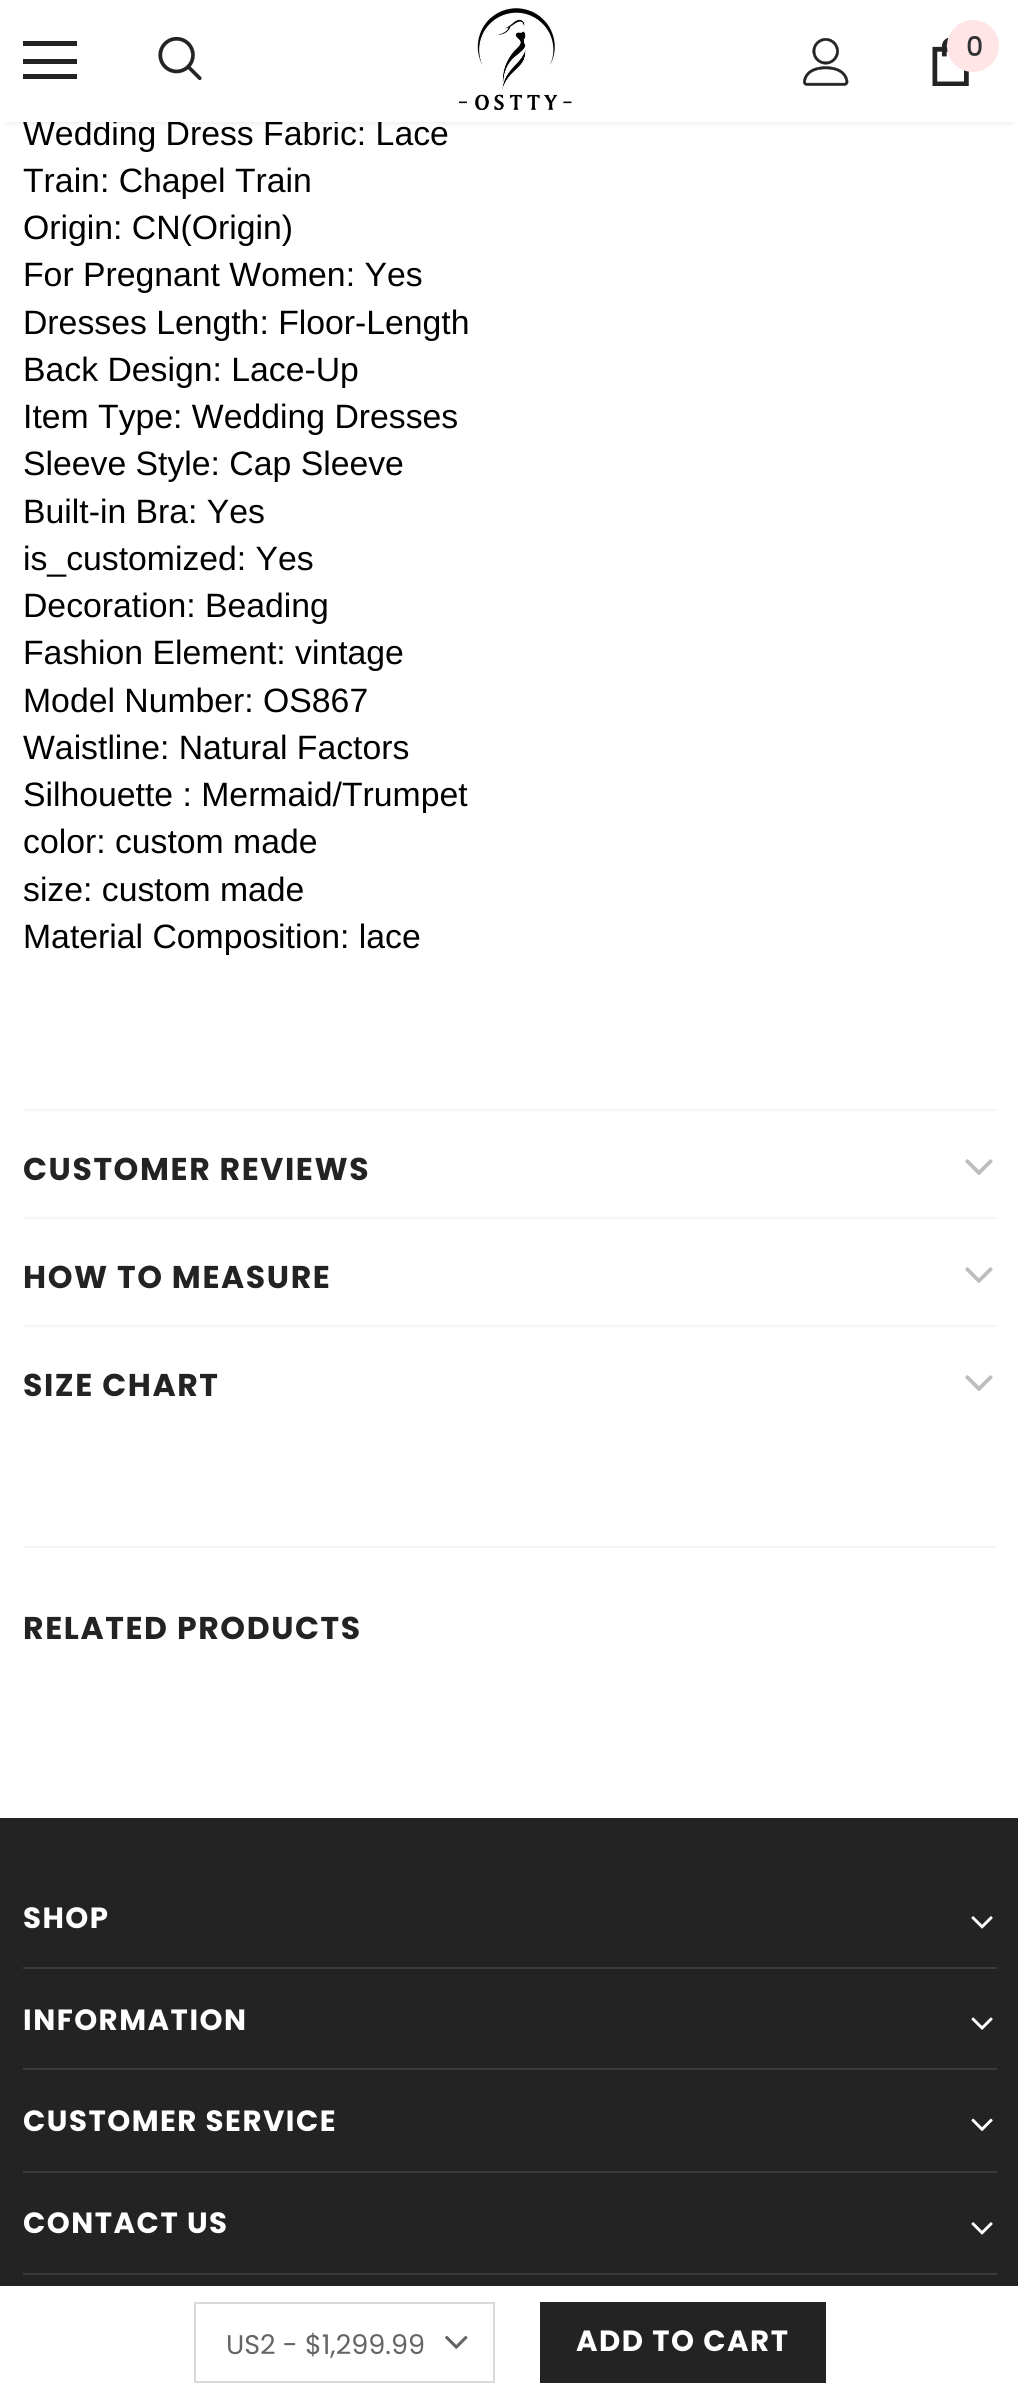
#include <cairo.h>
#include <math.h>
#include <stddef.h>

typedef struct { const char *family; double size; int italic, bold; unsigned color; } style_t;
static cairo_t *ctx;

static void ink(unsigned color) {
    cairo_set_source_rgb(ctx, (color >> 16) / 255.0, (color >> 8 & 255) / 255.0, (color & 255) / 255.0);
}

static void write(double x, double y, const char *s, const style_t *st) {
    cairo_select_font_face(ctx, st->family, st->italic ? CAIRO_FONT_SLANT_ITALIC : CAIRO_FONT_SLANT_NORMAL,
        st->bold ? CAIRO_FONT_WEIGHT_BOLD : CAIRO_FONT_WEIGHT_NORMAL);
    cairo_set_font_size(ctx, st->size);
    ink(st->color);
    cairo_move_to(ctx, x, y);
    cairo_show_text(ctx, s);
}

static void write_spaced(double x, double y, const char *s, double letter, double word) {
    cairo_move_to(ctx, x, y);
    while (*s) {
        char ch[5] = {0};
        int n = 0;
        do ch[n++] = *s++; while ((*s & 0xC0) == 0x80);
        cairo_show_text(ctx, ch);
        cairo_rel_move_to(ctx, letter + word * (*ch == ' '), 0);
    }
}

static void block(double x, double y, double w, double h, unsigned color) {
    ink(color);
    cairo_rectangle(ctx, x, y, w, h);
    cairo_fill(ctx);
}

static void round_path(double x, double y, double w, double h, double r) {
    cairo_new_sub_path(ctx);
    cairo_arc(ctx, x + w - r, y + h - r, r, 0, M_PI / 2);
    cairo_arc(ctx, x + r, y + h - r, r, M_PI / 2, M_PI);
    cairo_arc(ctx, x + r, y + r, r, M_PI, 1.5 * M_PI);
    cairo_arc(ctx, x + w - r, y + r, r, 1.5 * M_PI, 2 * M_PI);
    cairo_close_path(ctx);
}

static void blur_box(double x, double y, double w, double h, double r, double blur, double alpha) {
    cairo_push_group_with_content(ctx, CAIRO_CONTENT_ALPHA);
    cairo_set_operator(ctx, CAIRO_OPERATOR_SOURCE);
    for (int i = 15; i >= -15 && fmin(w, h) + blur * i / 3 > 0; i -= 2) {
        double e = blur * i / 6;
        cairo_set_source_rgba(ctx, 0, 0, 0, alpha * erfc((i - 1) / 8.5) / 2);
        round_path(x - e, y - e, w + 2 * e, h + 2 * e, fmax(0, fmin(r + e + blur * .6, fmin(w, h) / 2 + e)));
        cairo_fill(ctx);
    }
    cairo_pattern_t *soft = cairo_pop_group(ctx);
    cairo_mask(ctx, soft);
    cairo_pattern_destroy(soft);
}

static void paste(const char *path, double x, double y, double w, double h) {
    cairo_surface_t *image = cairo_image_surface_create_from_png(path);
    cairo_save(ctx);
    cairo_set_source_surface(ctx, image, x, y);
    cairo_rectangle(ctx, x, y, w, h);
    cairo_fill(ctx);
    cairo_restore(ctx);
    cairo_surface_destroy(image);
}

static const style_t s1 = {"Liberation Sans", 33.75, 0, 0, 0x000000};
static const style_t s2 = {"Poppins Medium", 27, 0, 0, 0x323232};
static const style_t s3 = {"Poppins", 27, 0, 0, 0x646464};

int main(void) {
    cairo_surface_t *surface = cairo_image_surface_create(CAIRO_FORMAT_RGB24, 1018, 2397);
    ctx = cairo_create(surface);
    cairo_font_options_t *options = cairo_font_options_create();
    cairo_font_options_set_hint_metrics(options, CAIRO_HINT_METRICS_OFF);
    cairo_font_options_set_hint_style(options, CAIRO_HINT_STYLE_NONE);
    cairo_set_font_options(ctx, options);
    cairo_set_miter_limit(ctx, 4);
    ink(0xffffff);
    cairo_paint(ctx);
    ink(0x000000);
    blur_box(7, 14, 1006, 108, 0, 3.5, 0.12);
    write(23, 145, "Wedding Dress Fabric: Lace", &s1);
    block(2, 9, 1016, 113, 0xffffff);
    block(23, 41, 54, 5, 0x232323);
    block(23, 59, 54, 5, 0x232323);
    block(23, 74, 54, 5, 0x232323);
    paste("pic1.png", 158, 36, 44, 45);
    paste("pic2.png", 459, 8, 113, 103);
    paste("pic3.png", 803, 38, 46, 48);
    paste("pic4.png", 932, 38, 37, 48);
    ink(0xffe5e5);
    cairo_arc(ctx, 973, 46, 26, 0, 2 * M_PI);
    cairo_fill(ctx);
    write(966, 56, "0", &s2);
    write(23, 192, "Train: Chapel Train", &s1);
    write(23, 239, "Origin: CN(Origin)", &s1);
    write(23, 286, "For Pregnant Women: Yes", &s1);
    write(23, 334, "Dresses Length: Floor-Length", &s1);
    write(23, 381, "Back Design: Lace-Up", &s1);
    write(23, 428, "Item Type: Wedding Dresses", &s1);
    write(23, 475, "Sleeve Style: Cap Sleeve", &s1);
    write(23, 523, "Built-in Bra: Yes", &s1);
    write(23, 570, "is_customized: Yes", &s1);
    write(23, 617, "Decoration: Beading", &s1);
    write(23, 664, "Fashion Element: vintage", &s1);
    write(23, 712, "Model Number: OS867", &s1);
    write(23, 759, "Waistline: Natural Factors", &s1);
    write(23, 806, "Silhouette : Mermaid/Trumpet", &s1);
    write(23, 853, "color: custom made", &s1);
    write(23, 901, "size: custom made", &s1);
    write(23, 948, "Material Composition: lace", &s1);
    block(23, 1109, 974, 2, 0xf6f6f6);
    cairo_select_font_face(ctx, "Poppins", CAIRO_FONT_SLANT_NORMAL, CAIRO_FONT_WEIGHT_BOLD);
    cairo_set_font_size(ctx, 31.5);
    ink(0x232323);
    write_spaced(23, 1180, "CUSTOMER REVIEWS", 1.6, 0);
    paste("pic5.png", 965, 1159, 28, 16);
    block(23, 1217, 974, 2, 0xf6f6f6);
    ink(0x232323);
    write_spaced(23, 1288, "HOW TO MEASURE", 1.6, 0);
    paste("pic5.png", 965, 1267, 28, 16);
    block(23, 1325, 974, 2, 0xf6f6f6);
    ink(0x232323);
    write_spaced(23, 1396, "SIZE CHART", 1.6, 0);
    paste("pic5.png", 965, 1375, 28, 16);
    block(23, 1546, 974, 2, 0xf6f6f6);
    ink(0x232323);
    write_spaced(23, 1639, "RELATED PRODUCTS", 1.6, 0);
    block(0, 1818, 1018, 468, 0x232323);
    block(23, 1967, 974, 2, 0x3b3b3b);
    cairo_set_font_size(ctx, 29.25);
    ink(0xffffff);
    write_spaced(23, 1928, "SHOP", 1.5, 0);
    paste("pic6.png", 971, 1916, 22, 13);
    block(23, 2068, 974, 2, 0x3b3b3b);
    ink(0xffffff);
    write_spaced(23, 2030, "INFORMATION", 1.5, 0);
    paste("pic7.png", 971, 2017, 22, 13);
    block(23, 2171, 974, 2, 0x3b3b3b);
    ink(0xffffff);
    write_spaced(23, 2131, "CUSTOMER SERVICE", 1.5, 0);
    paste("pic8.png", 971, 2118, 22, 13);
    block(23, 2273, 974, 2, 0x3b3b3b);
    ink(0xffffff);
    write_spaced(23, 2233, "CONTACT US", 1.5, 0);
    paste("pic6.png", 971, 2222, 22, 13);
    cairo_rectangle(ctx, 195, 2303, 299, 79);
    ink(0xdadada);
    cairo_stroke(ctx);
    write(226, 2354, "US2 - $1,299.99", &s3);
    paste("pic9.png", 445, 2335, 23, 14);
    block(540, 2302, 286, 81, 0x232323);
    cairo_select_font_face(ctx, "Poppins", CAIRO_FONT_SLANT_NORMAL, CAIRO_FONT_WEIGHT_BOLD);
    cairo_set_font_size(ctx, 29.25);
    ink(0xffffff);
    write_spaced(576, 2351, "ADD TO CART", 1.5, 0);
    cairo_surface_write_to_png(surface, "screenshot.png");
    cairo_font_options_destroy(options);
    cairo_destroy(ctx);
    cairo_surface_destroy(surface);
    return 0;
}
